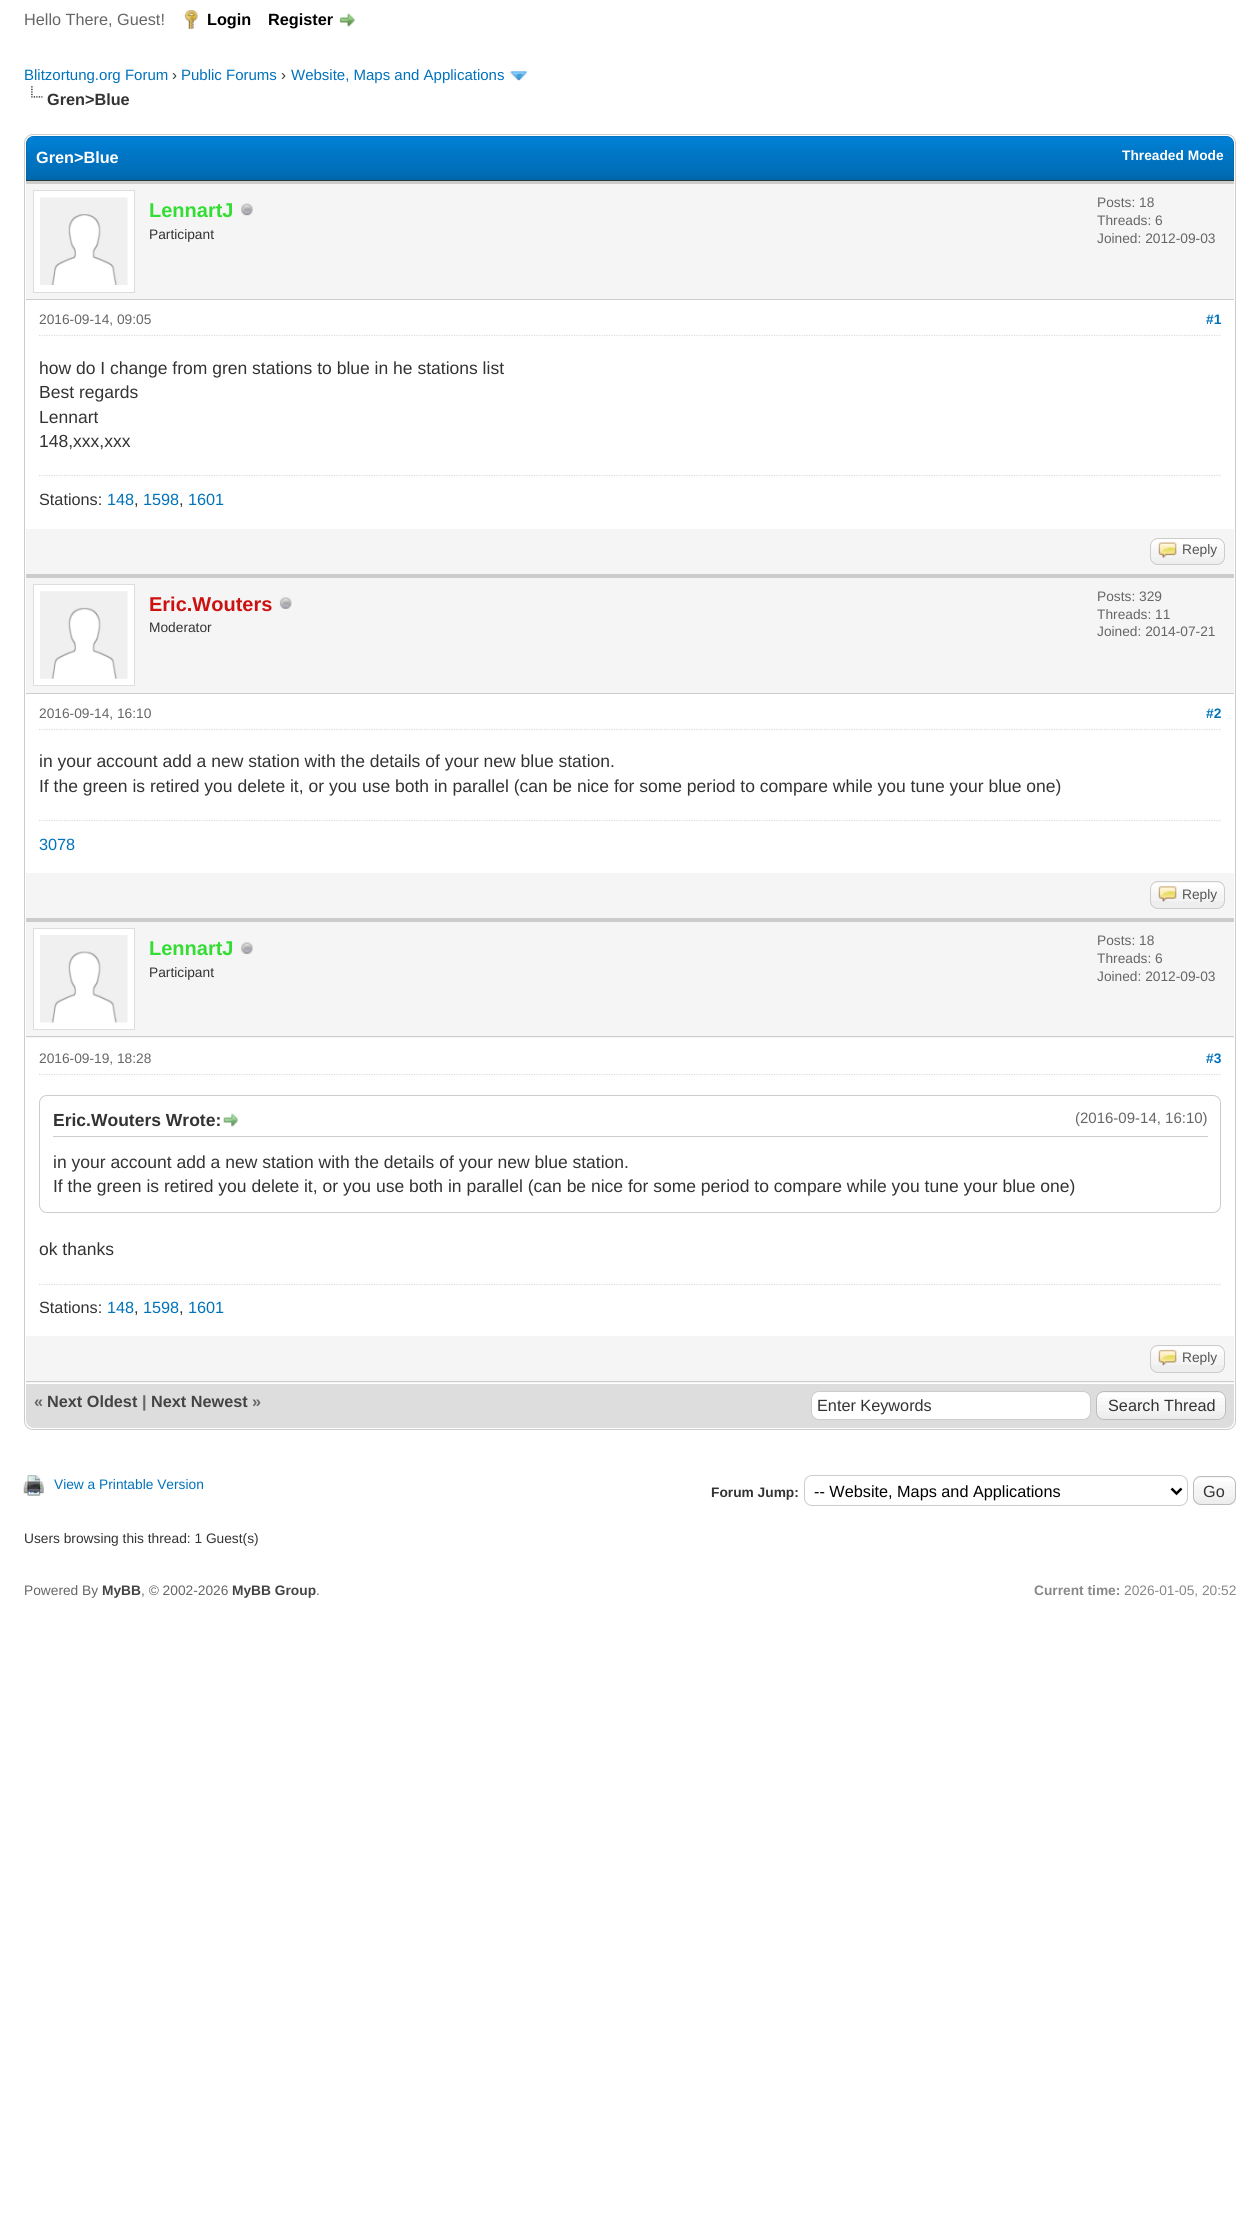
#include <cairo.h>
#include <math.h>
#include <stddef.h>

typedef struct { const char *family; double size; int italic, bold; unsigned color; } style_t;
static cairo_t *ctx;

static void ink(unsigned color) {
    cairo_set_source_rgb(ctx, (color >> 16) / 255.0, (color >> 8 & 255) / 255.0, (color & 255) / 255.0);
}

static void write(double x, double y, const char *s, const style_t *st) {
    cairo_select_font_face(ctx, st->family, st->italic ? CAIRO_FONT_SLANT_ITALIC : CAIRO_FONT_SLANT_NORMAL,
        st->bold ? CAIRO_FONT_WEIGHT_BOLD : CAIRO_FONT_WEIGHT_NORMAL);
    cairo_set_font_size(ctx, st->size);
    ink(st->color);
    cairo_move_to(ctx, x, y);
    cairo_show_text(ctx, s);
}

static void block(double x, double y, double w, double h, unsigned color) {
    ink(color);
    cairo_rectangle(ctx, x, y, w, h);
    cairo_fill(ctx);
}

static void round_path(double x, double y, double w, double h, double r) {
    cairo_new_sub_path(ctx);
    cairo_arc(ctx, x + w - r, y + h - r, r, 0, M_PI / 2);
    cairo_arc(ctx, x + r, y + h - r, r, M_PI / 2, M_PI);
    cairo_arc(ctx, x + r, y + r, r, M_PI, 1.5 * M_PI);
    cairo_arc(ctx, x + w - r, y + r, r, 1.5 * M_PI, 2 * M_PI);
    cairo_close_path(ctx);
}

static void paste(const char *path, double x, double y, double w, double h) {
    cairo_surface_t *image = cairo_image_surface_create_from_png(path);
    cairo_save(ctx);
    cairo_set_source_surface(ctx, image, x, y);
    cairo_rectangle(ctx, x, y, w, h);
    cairo_fill(ctx);
    cairo_restore(ctx);
    cairo_surface_destroy(image);
}

static const style_t s1 = {"Liberation Sans", 16.25, 0, 0, 0x666666};
static const style_t s2 = {"Liberation Sans", 16.25, 0, 1, 0x000000};
static const style_t s3 = {"Liberation Sans", 15, 0, 0, 0x0072bc};
static const style_t s4 = {"Liberation Sans", 15, 0, 0, 0x333333};
static const style_t s5 = {"Liberation Sans", 16.25, 0, 1, 0x333333};
static const style_t s6 = {"Liberation Sans", 16.25, 0, 1, 0xffffff};
static const style_t s7 = {"Liberation Sans", 13.75, 0, 1, 0xffffff};
static const style_t s8 = {"Liberation Sans", 20, 0, 1, 0x33dd33};
static const style_t s9 = {"Liberation Sans", 13.75, 0, 0, 0x333333};
static const style_t s10 = {"Liberation Sans", 13.75, 0, 0, 0x666666};
static const style_t s11 = {"Liberation Sans", 13.75, 0, 1, 0x0072bc};
static const style_t s12 = {"Liberation Sans", 17.5, 0, 0, 0x333333};
static const style_t s13 = {"Liberation Sans", 16.25, 0, 0, 0x333333};
static const style_t s14 = {"Liberation Sans", 16.25, 0, 0, 0x0072bc};
static const style_t s15 = {"Liberation Sans", 13.75, 0, 0, 0x555555};
static const style_t s16 = {"Liberation Sans", 20, 0, 1, 0xcc1111};
static const style_t s17 = {"Liberation Sans", 17.5, 0, 1, 0x333333};
static const style_t s18 = {"Liberation Sans", 15, 0, 0, 0x666666};
static const style_t s19 = {"Liberation Sans", 16.25, 0, 1, 0x666666};
static const style_t s20 = {"Liberation Sans", 16.25, 0, 1, 0x444444};
static const style_t s21 = {"Liberation Sans", 13.75, 0, 0, 0x0072bc};
static const style_t s22 = {"Liberation Sans", 13.75, 0, 1, 0x333333};
static const style_t s23 = {"Liberation Sans", 16.25, 0, 0, 0x000000};
static const style_t s24 = {"Liberation Sans", 13.75, 0, 1, 0x444444};
static const style_t s25 = {"Liberation Sans", 13.75, 0, 1, 0x888888};
static const style_t s26 = {"Liberation Sans", 13.75, 0, 0, 0x888888};

int main(void) {
    cairo_surface_t *surface = cairo_image_surface_create(CAIRO_FORMAT_RGB24, 1259, 2217);
    ctx = cairo_create(surface);
    cairo_font_options_t *options = cairo_font_options_create();
    cairo_font_options_set_hint_metrics(options, CAIRO_HINT_METRICS_OFF);
    cairo_font_options_set_hint_style(options, CAIRO_HINT_STYLE_NONE);
    cairo_set_font_options(ctx, options);
    cairo_set_miter_limit(ctx, 4);
    ink(0xffffff);
    cairo_paint(ctx);
    write(24, 25, "Hello There, Guest!", &s1);
    paste("pic1.png", 184, 10, 14, 19);
    write(207, 25, "Login", &s2);
    write(268, 25, "Register", &s2);
    paste("pic2.png", 339, 13, 17, 14);
    write(24, 80, "Blitzortung.org Forum", &s3);
    write(172, 80, "›", &s4);
    write(181, 80, "Public Forums", &s3);
    write(281, 80, "›", &s4);
    write(291, 80, "Website, Maps and Applications", &s3);
    paste("pic3.png", 510, 71, 18, 10);
    paste("pic4.png", 31, 86, 12, 12);
    write(47, 105, "Gren>Blue", &s5);
    round_path(24.5, 134.5, 1211, 1295, 8.5);
    ink(0xcccccc);
    cairo_set_line_width(ctx, 1);
    cairo_stroke(ctx);
    ink(0x0066a2);
    cairo_new_path(ctx);
    cairo_move_to(ctx, 34, 136);
    cairo_line_to(ctx, 1226, 136);
    cairo_curve_to(ctx, 1230.5, 136, 1234, 139.5, 1234, 144);
    cairo_line_to(ctx, 1234, 181);
    cairo_line_to(ctx, 26, 181);
    cairo_line_to(ctx, 26, 144);
    cairo_curve_to(ctx, 26, 139.5, 29.5, 136, 34, 136);
    cairo_close_path(ctx);
    cairo_fill(ctx);
    paste("pic5.png", 26, 136, 1208, 44);
    block(26, 180, 1208, 1, 0x263c30);
    write(36, 163, "Gren>Blue", &s6);
    write(1122, 160, "Threaded Mode", &s7);
    block(26, 184, 1208, 115, 0xf5f5f5);
    block(26, 181, 1208, 3, 0xcccccc);
    block(26, 299, 1208, 1, 0xcccccc);
    ink(0xffffff);
    cairo_rectangle(ctx, 33.5, 190.5, 101, 102);
    cairo_fill_preserve(ctx);
    ink(0xdddddd);
    cairo_stroke(ctx);
    paste("pic6.png", 40, 197, 88, 88);
    write(149, 217, "LennartJ", &s8);
    paste("pic7.png", 241, 203, 12, 13);
    write(149, 239, "Participant", &s9);
    write(1097, 207, "Posts: 18", &s10);
    write(1097, 225, "Threads: 6", &s10);
    write(1097, 243, "Joined: 2012-09-03", &s10);
    cairo_new_path(ctx);
    cairo_move_to(ctx, 39, 335.5);
    cairo_line_to(ctx, 1221, 335.5);
    ink(0xdddddd);
    cairo_set_line_width(ctx, 1.2);
    cairo_set_dash(ctx, (double[]){1.25, 1.25}, 2, 0);
    cairo_stroke(ctx);
    write(39, 324, "2016-09-14, 09:05", &s10);
    write(1206, 324, "#1", &s11);
    write(39, 374, "how do I change from gren stations to blue in he stations list", &s12);
    write(39, 398, "Best regards", &s12);
    write(39, 423, "Lennart", &s12);
    write(39, 447, "148,xxx,xxx", &s12);
    cairo_new_path(ctx);
    cairo_move_to(ctx, 39, 475.5);
    cairo_line_to(ctx, 1221, 475.5);
    ink(0xdddddd);
    cairo_stroke(ctx);
    write(39, 505, "Stations:", &s13);
    write(107, 505, "148", &s14);
    write(134, 505, ",", &s13);
    write(143, 505, "1598", &s14);
    write(179, 505, ",", &s13);
    write(188, 505, "1601", &s14);
    block(26, 529, 1208, 45, 0xf5f5f5);
    block(26, 574, 1208, 4, 0xcccccc);
    paste("pic8.png", 1150, 538, 75, 27);
    round_path(1150.5, 538.5, 74, 26, 7.5);
    cairo_set_line_width(ctx, 1);
    cairo_set_dash(ctx, NULL, 0, 0);
    cairo_stroke(ctx);
    paste("pic9.png", 1158, 542, 19, 16);
    write(1182, 554, "Reply", &s15);
    block(26, 578, 1208, 115, 0xf5f5f5);
    block(26, 693, 1208, 1, 0xcccccc);
    ink(0xffffff);
    cairo_rectangle(ctx, 33.5, 584.5, 101, 101);
    cairo_fill_preserve(ctx);
    ink(0xdddddd);
    cairo_stroke(ctx);
    paste("pic10.png", 40, 591, 88, 88);
    write(149, 611, "Eric.Wouters", &s16);
    paste("pic11.png", 279, 597, 13, 12);
    write(149, 632, "Moderator", &s9);
    write(1097, 601, "Posts: 329", &s10);
    write(1097, 619, "Threads: 11", &s10);
    write(1097, 636, "Joined: 2014-07-21", &s10);
    cairo_new_path(ctx);
    cairo_move_to(ctx, 39, 729.5);
    cairo_line_to(ctx, 1221, 729.5);
    ink(0xdddddd);
    cairo_set_line_width(ctx, 1.2);
    cairo_set_dash(ctx, (double[]){1.25, 1.25}, 2, 0);
    cairo_stroke(ctx);
    write(39, 718, "2016-09-14, 16:10", &s10);
    write(1206, 718, "#2", &s11);
    write(39, 767, "in your account add a new station with the details of your new blue station.", &s12);
    write(39, 792, "If the green is retired you delete it, or you use both in parallel (can be nice for some period to compare while you tune your blue one)", &s12);
    cairo_new_path(ctx);
    cairo_move_to(ctx, 39, 820.5);
    cairo_line_to(ctx, 1221, 820.5);
    ink(0xdddddd);
    cairo_stroke(ctx);
    write(39, 850, "3078", &s14);
    block(26, 873, 1208, 45, 0xf5f5f5);
    block(26, 918, 1208, 4, 0xcccccc);
    ink(0xeeeeee);
    round_path(1150, 881, 75, 28, 8);
    cairo_fill(ctx);
    paste("pic12.png", 1150, 882, 75, 19);
    round_path(1150.5, 881.5, 74, 27, 7.5);
    ink(0xcccccc);
    cairo_set_line_width(ctx, 1);
    cairo_set_dash(ctx, NULL, 0, 0);
    cairo_stroke(ctx);
    paste("pic13.png", 1158, 886, 19, 16);
    write(1182, 899, "Reply", &s15);
    block(26, 922, 1208, 116, 0xf5f5f5);
    block(26, 1036, 1208, 1, 0xcccccc);
    ink(0xffffff);
    cairo_rectangle(ctx, 33.5, 928.5, 101, 101);
    cairo_fill_preserve(ctx);
    ink(0xdddddd);
    cairo_stroke(ctx);
    paste("pic14.png", 40, 935, 88, 88);
    write(149, 955, "LennartJ", &s8);
    paste("pic15.png", 241, 942, 12, 12);
    write(149, 977, "Participant", &s9);
    write(1097, 945, "Posts: 18", &s10);
    write(1097, 963, "Threads: 6", &s10);
    write(1097, 981, "Joined: 2012-09-03", &s10);
    cairo_new_path(ctx);
    cairo_move_to(ctx, 39, 1074.5);
    cairo_line_to(ctx, 1221, 1074.5);
    ink(0xdddddd);
    cairo_set_line_width(ctx, 1.2);
    cairo_set_dash(ctx, (double[]){1.25, 1.25}, 2, 0);
    cairo_stroke(ctx);
    write(39, 1063, "2016-09-19, 18:28", &s10);
    write(1206, 1063, "#3", &s11);
    round_path(39.5, 1095.5, 1181, 117, 7.5);
    ink(0xcccccc);
    cairo_set_line_width(ctx, 1);
    cairo_set_dash(ctx, NULL, 0, 0);
    cairo_stroke(ctx);
    block(53, 1136, 1155, 1, 0xcccccc);
    write(53, 1126, "Eric.Wouters Wrote:", &s17);
    paste("pic16.png", 223, 1113, 15, 14);
    write(1075, 1123, "(2016-09-14, 16:10)", &s18);
    write(53, 1168, "in your account add a new station with the details of your new blue station.", &s12);
    write(53, 1192, "If the green is retired you delete it, or you use both in parallel (can be nice for some period to compare while you tune your blue one)", &s12);
    write(39, 1255, "ok thanks", &s12);
    cairo_new_path(ctx);
    cairo_move_to(ctx, 39, 1284.5);
    cairo_line_to(ctx, 1221, 1284.5);
    ink(0xdddddd);
    cairo_set_line_width(ctx, 1.2);
    cairo_set_dash(ctx, (double[]){1.25, 1.25}, 2, 0);
    cairo_stroke(ctx);
    write(39, 1313, "Stations:", &s13);
    write(107, 1313, "148", &s14);
    write(134, 1313, ",", &s13);
    write(143, 1313, "1598", &s14);
    write(179, 1313, ",", &s13);
    write(188, 1313, "1601", &s14);
    block(26, 1336, 1208, 47, 0xf5f5f5);
    block(26, 1381, 1208, 1, 0xcccccc);
    ink(0xeeeeee);
    round_path(1150, 1345, 75, 28, 8);
    cairo_fill(ctx);
    paste("pic17.png", 1150, 1346, 75, 19);
    round_path(1150.5, 1345.5, 74, 27, 7.5);
    ink(0xcccccc);
    cairo_set_line_width(ctx, 1);
    cairo_set_dash(ctx, NULL, 0, 0);
    cairo_stroke(ctx);
    paste("pic18.png", 1158, 1349, 19, 17);
    write(1182, 1362, "Reply", &s15);
    ink(0xdddddd);
    cairo_new_path(ctx);
    cairo_move_to(ctx, 26, 1383);
    cairo_line_to(ctx, 1234, 1383);
    cairo_line_to(ctx, 1234, 1420);
    cairo_curve_to(ctx, 1234, 1424.5, 1230.5, 1428, 1226, 1428);
    cairo_line_to(ctx, 34, 1428);
    cairo_curve_to(ctx, 29.5, 1428, 26, 1424.5, 26, 1420);
    cairo_close_path(ctx);
    cairo_fill(ctx);
    block(26, 1383, 1208, 1, 0xffffff);
    write(34, 1407, "«", &s19);
    write(47, 1407, "Next Oldest", &s20);
    write(142, 1407, "|", &s19);
    write(151, 1407, "Next Newest", &s20);
    write(252, 1407, "»", &s19);
    ink(0xffffff);
    round_path(811.5, 1391.5, 279, 28, 7.5);
    cairo_fill_preserve(ctx);
    ink(0xcccccc);
    cairo_stroke(ctx);
    write(817, 1411, "Enter Keywords", &s13);
    ink(0xeeeeee);
    round_path(1096, 1391, 130, 29, 8);
    cairo_fill(ctx);
    paste("pic19.png", 1096, 1392, 130, 28);
    round_path(1096.5, 1391.5, 129, 28, 7.5);
    ink(0xbbbbbb);
    cairo_stroke(ctx);
    write(1108, 1411, "Search Thread", &s13);
    paste("pic20.png", 23, 1475, 21, 21);
    write(54, 1489, "View a Printable Version", &s21);
    write(711, 1497, "Forum Jump:", &s22);
    round_path(804.5, 1475.5, 383, 30, 7.5);
    ink(0xcccccc);
    cairo_stroke(ctx);
    cairo_new_path(ctx);
    cairo_move_to(ctx, 1171.5, 1488.5);
    cairo_line_to(ctx, 1176.5, 1493.5);
    cairo_line_to(ctx, 1181.5, 1488.5);
    ink(0x000000);
    cairo_set_line_width(ctx, 2.5);
    cairo_stroke(ctx);
    write(814, 1497, "-- Website, Maps and Applications", &s23);
    ink(0xeeeeee);
    round_path(1193, 1476, 43, 29, 8);
    cairo_fill(ctx);
    paste("pic21.png", 1192, 1477, 44, 28);
    round_path(1193.5, 1476.5, 42, 28, 7.5);
    ink(0xbbbbbb);
    cairo_set_line_width(ctx, 1);
    cairo_stroke(ctx);
    write(1203, 1497, "Go", &s13);
    write(24, 1543, "Users browsing this thread: 1 Guest(s)", &s9);
    write(24, 1595, "Powered By", &s10);
    write(102, 1595, "MyBB", &s24);
    write(141, 1595, ", © 2002-2026", &s10);
    write(232, 1595, "MyBB Group", &s24);
    write(316, 1595, ".", &s10);
    write(1034, 1595, "Current time:", &s25);
    write(1124, 1595, "2026-01-05, 20:52", &s26);
    cairo_surface_write_to_png(surface, "screenshot.png");
    cairo_font_options_destroy(options);
    cairo_destroy(ctx);
    cairo_surface_destroy(surface);
    return 0;
}
